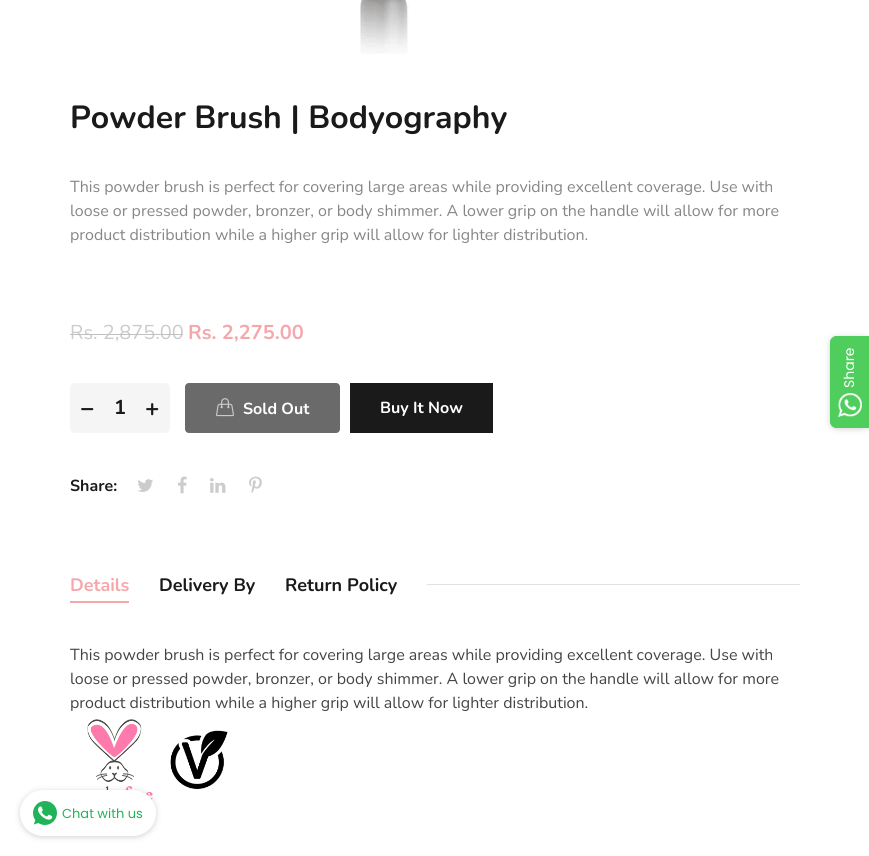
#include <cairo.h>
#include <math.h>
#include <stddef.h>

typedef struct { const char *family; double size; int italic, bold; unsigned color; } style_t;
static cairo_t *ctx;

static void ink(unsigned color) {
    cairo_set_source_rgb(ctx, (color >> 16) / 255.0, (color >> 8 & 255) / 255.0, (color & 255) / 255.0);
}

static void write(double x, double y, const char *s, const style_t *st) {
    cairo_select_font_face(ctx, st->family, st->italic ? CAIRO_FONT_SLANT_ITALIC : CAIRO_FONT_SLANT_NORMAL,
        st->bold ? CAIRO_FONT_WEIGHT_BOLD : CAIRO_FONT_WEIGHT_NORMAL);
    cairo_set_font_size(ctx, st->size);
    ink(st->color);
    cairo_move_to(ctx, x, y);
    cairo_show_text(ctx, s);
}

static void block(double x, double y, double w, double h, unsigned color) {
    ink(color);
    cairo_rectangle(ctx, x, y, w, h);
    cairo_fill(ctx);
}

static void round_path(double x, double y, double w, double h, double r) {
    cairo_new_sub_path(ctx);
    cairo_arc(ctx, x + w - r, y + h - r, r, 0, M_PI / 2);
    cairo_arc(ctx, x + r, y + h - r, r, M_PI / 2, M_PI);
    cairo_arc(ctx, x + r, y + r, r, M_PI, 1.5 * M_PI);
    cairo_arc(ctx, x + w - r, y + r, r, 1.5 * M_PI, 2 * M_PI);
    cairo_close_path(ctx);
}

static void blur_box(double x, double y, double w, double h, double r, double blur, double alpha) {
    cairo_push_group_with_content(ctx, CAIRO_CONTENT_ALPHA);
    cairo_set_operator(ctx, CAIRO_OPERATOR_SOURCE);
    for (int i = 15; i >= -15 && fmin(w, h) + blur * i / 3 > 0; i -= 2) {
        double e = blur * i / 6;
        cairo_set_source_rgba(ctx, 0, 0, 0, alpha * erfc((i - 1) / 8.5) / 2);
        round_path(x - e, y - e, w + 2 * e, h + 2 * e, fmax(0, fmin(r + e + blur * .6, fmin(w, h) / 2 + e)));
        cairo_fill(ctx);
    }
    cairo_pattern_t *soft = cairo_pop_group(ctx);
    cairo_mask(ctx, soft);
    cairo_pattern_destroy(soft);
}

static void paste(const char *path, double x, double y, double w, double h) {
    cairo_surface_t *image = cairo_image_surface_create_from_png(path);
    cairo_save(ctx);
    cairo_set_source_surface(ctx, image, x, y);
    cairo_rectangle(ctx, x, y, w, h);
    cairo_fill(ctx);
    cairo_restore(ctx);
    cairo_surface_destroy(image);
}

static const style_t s1 = {"Nunito ExtraLight", 32, 0, 0, 0x1a1a1a};
static const style_t s2 = {"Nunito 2 ExtraLight", 16, 0, 0, 0x868686};
static const style_t s3 = {"Nunito 2 ExtraLight", 20, 0, 0, 0xcccccc};
static const style_t s4 = {"Nunito ExtraLight", 20, 0, 0, 0xf4a8ac};
static const style_t s5 = {"Nunito ExtraLight", 24, 0, 0, 0x1a1a1a};
static const style_t s6 = {"Nunito ExtraLight", 20, 0, 0, 0x1a1a1a};
static const style_t s7 = {"Nunito ExtraLight", 16, 0, 0, 0xffffff};
static const style_t s8 = {"Nunito ExtraLight", 16, 0, 0, 0x1a1a1a};
static const style_t s9 = {"Nunito ExtraLight", 18, 0, 0, 0xf4a8ac};
static const style_t s10 = {"Nunito ExtraLight", 18, 0, 0, 0x1a1a1a};
static const style_t s11 = {"Nunito 2 ExtraLight", 16, 0, 0, 0x444444};
static const style_t s12 = {"Poppins", 14, 0, 0, 0xffffff};
static const style_t s13 = {"Poppins", 13, 0, 0, 0x21b358};

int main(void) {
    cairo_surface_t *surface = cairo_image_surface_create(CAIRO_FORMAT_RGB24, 869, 856);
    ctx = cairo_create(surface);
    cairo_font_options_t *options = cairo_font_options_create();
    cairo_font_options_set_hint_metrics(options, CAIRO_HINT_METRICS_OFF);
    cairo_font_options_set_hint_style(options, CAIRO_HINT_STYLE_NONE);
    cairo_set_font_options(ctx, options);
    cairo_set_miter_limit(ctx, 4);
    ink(0xffffff);
    cairo_paint(ctx);
    paste("pic1.png", 360, 0, 49, 54);
    write(70, 128, "Powder Brush | Bodyography", &s1);
    write(70, 192, "This powder brush is perfect for covering large areas while providing excellent coverage. Use with", &s2);
    write(70, 216, "loose or pressed powder, bronzer, or body shimmer. A lower grip on the handle will allow for more", &s2);
    write(70, 240, "product distribution while a higher grip will allow for lighter distribution.", &s2);
    write(70, 339, "Rs. 2,875.00", &s3);
    block(70, 334, 113, 1, 0xc1c1c1);
    write(188, 339, "Rs. 2,275.00", &s4);
    ink(0xf5f5f5);
    round_path(70, 383, 100, 50, 5);
    cairo_fill(ctx);
    write(80, 416, "−", &s5);
    write(114, 414, "1", &s6);
    write(145, 416, "+", &s5);
    ink(0x6a6a6a);
    round_path(185.5, 383.5, 154, 49, 3.5);
    cairo_fill_preserve(ctx);
    cairo_set_line_width(ctx, 1);
    cairo_stroke(ctx);
    paste("pic2.png", 216, 398, 18, 19);
    write(243, 414, "Sold Out", &s7);
    block(350, 383, 143, 50, 0x1a1a1a);
    write(380, 413, "Buy It Now", &s7);
    write(70, 491, "Share:", &s8);
    paste("pic3.png", 137, 479, 16, 13);
    paste("pic4.png", 178, 476, 9, 18);
    paste("pic5.png", 210, 478, 16, 15);
    paste("pic6.png", 249, 476, 13, 17);
    write(70, 591, "Details", &s9);
    block(70, 601, 59, 2, 0xf4a8ac);
    write(159, 591, "Delivery By", &s10);
    write(285, 591, "Return Policy", &s10);
    block(427, 584, 373, 1, 0xe1e1e1);
    write(70, 660, "This powder brush is perfect for covering large areas while providing excellent coverage. Use with", &s11);
    write(70, 684, "loose or pressed powder, bronzer, or body shimmer. A lower grip on the handle will allow for more", &s11);
    write(70, 708, "product distribution while a higher grip will allow for lighter distribution.", &s11);
    paste("pic7.png", 87, 719, 66, 81);
    paste("pic8.png", 170, 730, 58, 60);
    ink(0x1b1b1b);
    blur_box(830, 337, 39, 92, 7, 3, 0.2);
    ink(0x4fce5d);
    cairo_new_path(ctx);
    cairo_move_to(ctx, 837, 336);
    cairo_line_to(ctx, 869, 336);
    cairo_line_to(ctx, 869, 428);
    cairo_line_to(ctx, 837, 428);
    cairo_curve_to(ctx, 833, 428, 830, 425, 830, 421);
    cairo_line_to(ctx, 830, 343);
    cairo_curve_to(ctx, 830, 339, 833, 336, 837, 336);
    cairo_close_path(ctx);
    cairo_fill(ctx);
    cairo_set_fill_rule(ctx, CAIRO_FILL_RULE_EVEN_ODD);
    cairo_new_path(ctx);
    cairo_move_to(ctx, 837, 336);
    cairo_line_to(ctx, 869, 336);
    cairo_line_to(ctx, 869, 428);
    cairo_line_to(ctx, 837, 428);
    cairo_curve_to(ctx, 833, 428, 830, 425, 830, 421);
    cairo_line_to(ctx, 830, 343);
    cairo_curve_to(ctx, 830, 339, 833, 336, 837, 336);
    cairo_close_path(ctx);
    cairo_move_to(ctx, 837, 337);
    cairo_line_to(ctx, 869, 337);
    cairo_line_to(ctx, 869, 427);
    cairo_line_to(ctx, 837, 427);
    cairo_curve_to(ctx, 834, 427, 831, 424, 831, 421);
    cairo_line_to(ctx, 831, 343);
    cairo_curve_to(ctx, 831, 340, 834, 337, 837, 337);
    cairo_close_path(ctx);
    cairo_fill(ctx);
    cairo_save(ctx);
    cairo_translate(ctx, 854, 388);
    cairo_rotate(ctx, -90 * M_PI / 180);
    write(0, 0, "Share", &s12);
    cairo_restore(ctx);
    paste("pic9.png", 838, 393, 24, 24);
    ink(0x1b1b1b);
    blur_box(20, 791, 136, 46, 23, 3, 0.2);
    ink(0xffffff);
    round_path(20.5, 790.5, 135, 45, 22.5);
    cairo_fill_preserve(ctx);
    cairo_stroke(ctx);
    paste("pic10.png", 33, 801, 24, 24);
    write(62, 818, "Chat with us", &s13);
    cairo_surface_write_to_png(surface, "screenshot.png");
    cairo_font_options_destroy(options);
    cairo_destroy(ctx);
    cairo_surface_destroy(surface);
    return 0;
}
